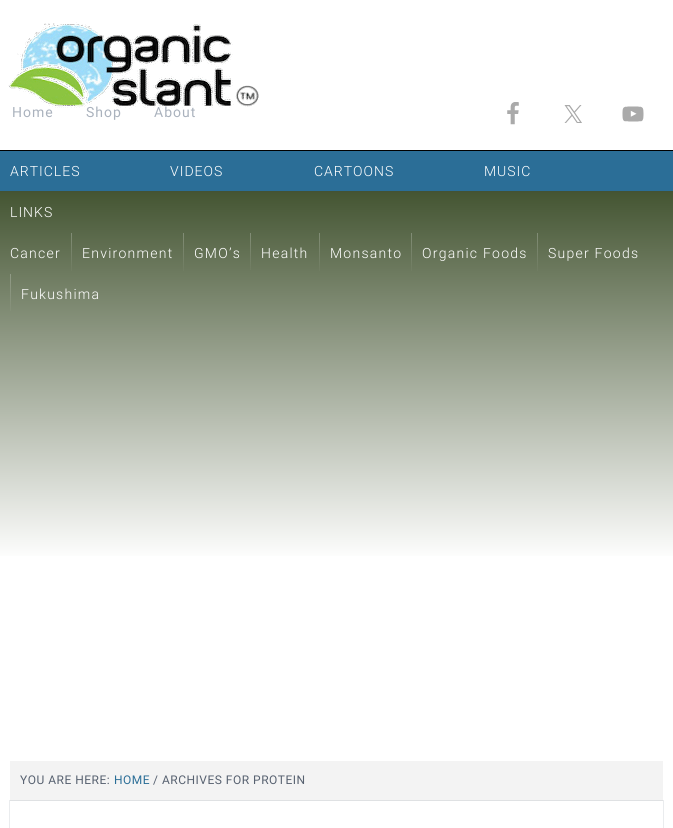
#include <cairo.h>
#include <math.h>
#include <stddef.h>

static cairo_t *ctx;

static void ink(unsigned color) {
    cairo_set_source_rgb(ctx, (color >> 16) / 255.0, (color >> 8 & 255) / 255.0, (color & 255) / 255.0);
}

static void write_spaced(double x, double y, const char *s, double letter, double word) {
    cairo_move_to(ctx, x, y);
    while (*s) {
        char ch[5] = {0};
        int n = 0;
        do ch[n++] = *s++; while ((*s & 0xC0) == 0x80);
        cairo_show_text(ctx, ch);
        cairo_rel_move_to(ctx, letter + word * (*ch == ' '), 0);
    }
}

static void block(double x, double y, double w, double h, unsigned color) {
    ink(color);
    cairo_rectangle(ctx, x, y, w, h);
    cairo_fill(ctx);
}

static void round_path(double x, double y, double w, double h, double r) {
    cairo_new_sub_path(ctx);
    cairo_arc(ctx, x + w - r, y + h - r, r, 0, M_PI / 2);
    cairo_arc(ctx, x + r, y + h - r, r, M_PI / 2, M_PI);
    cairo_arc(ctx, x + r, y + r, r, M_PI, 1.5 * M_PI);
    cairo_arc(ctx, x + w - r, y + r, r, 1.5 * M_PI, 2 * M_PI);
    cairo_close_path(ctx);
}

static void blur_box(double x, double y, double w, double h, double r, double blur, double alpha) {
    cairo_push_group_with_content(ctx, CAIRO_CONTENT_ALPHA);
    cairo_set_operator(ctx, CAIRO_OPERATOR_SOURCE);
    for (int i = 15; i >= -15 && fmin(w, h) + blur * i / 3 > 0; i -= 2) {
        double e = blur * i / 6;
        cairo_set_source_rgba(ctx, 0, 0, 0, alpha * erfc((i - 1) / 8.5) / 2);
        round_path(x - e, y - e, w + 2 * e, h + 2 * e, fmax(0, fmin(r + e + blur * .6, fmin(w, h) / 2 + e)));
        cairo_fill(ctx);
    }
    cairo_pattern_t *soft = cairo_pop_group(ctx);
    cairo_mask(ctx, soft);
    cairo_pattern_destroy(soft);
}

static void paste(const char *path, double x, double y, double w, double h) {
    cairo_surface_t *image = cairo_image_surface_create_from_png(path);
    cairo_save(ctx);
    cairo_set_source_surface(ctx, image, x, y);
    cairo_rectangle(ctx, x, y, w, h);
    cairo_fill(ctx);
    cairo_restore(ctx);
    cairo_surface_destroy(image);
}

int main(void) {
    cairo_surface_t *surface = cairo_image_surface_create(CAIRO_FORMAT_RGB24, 673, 828);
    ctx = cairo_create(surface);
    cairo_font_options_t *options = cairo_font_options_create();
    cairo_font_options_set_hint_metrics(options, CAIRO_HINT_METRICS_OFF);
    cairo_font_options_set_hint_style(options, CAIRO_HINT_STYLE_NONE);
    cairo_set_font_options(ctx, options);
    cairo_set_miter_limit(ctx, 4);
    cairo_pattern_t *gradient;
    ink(0xffffff);
    cairo_paint(ctx);
    gradient = cairo_pattern_create_linear(336, 0, 337, 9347);
    cairo_pattern_add_color_stop_rgba(gradient, 0.02, 0.259, 0.325, 0.188, 1);
    cairo_pattern_add_color_stop_rgba(gradient, 0.06, 1, 1, 1, 1);
    cairo_set_source(ctx, gradient);
    cairo_pattern_destroy(gradient);
    cairo_rectangle(ctx, 0, 191, 673, 365);
    cairo_fill(ctx);
    block(0, 150, 673, 1, 0x000000);
    paste("pic1.png", 8, 22, 251, 87);
    cairo_select_font_face(ctx, "Roboto", CAIRO_FONT_SLANT_NORMAL, CAIRO_FONT_WEIGHT_NORMAL);
    cairo_set_font_size(ctx, 14);
    ink(0xaab2bd);
    write_spaced(12, 117, "Home", 1, 0);
    write_spaced(86, 117, "Shop", 1, 0);
    write_spaced(154, 117, "About", 1, 0);
    paste("pic2.png", 507, 102, 12, 23);
    paste("pic3.png", 564, 105, 18, 18);
    paste("pic4.png", 622, 106, 22, 16);
    ink(0x303d50);
    blur_box(0, 152, 673, 40, 0, 0.5, 0.1);
    block(0, 151, 673, 40, 0x2b6e97);
    cairo_select_font_face(ctx, "Roboto Light", CAIRO_FONT_SLANT_NORMAL, CAIRO_FONT_WEIGHT_NORMAL);
    ink(0xffffff);
    write_spaced(10, 176, "ARTICLES", 1, 0);
    write_spaced(170, 176, "VIDEOS", 1, 0);
    write_spaced(314, 176, "CARTOONS", 1, 0);
    write_spaced(484, 176, "MUSIC", 1, 0);
    write_spaced(10, 217, "LINKS", 1, 0);
    write_spaced(10, 258, "Cancer", 1.25, 0);
    paste("pic5.png", 71, 233, 1, 38);
    write_spaced(82, 258, "Environment", 1.25, 0);
    paste("pic5.png", 183, 233, 1, 38);
    write_spaced(194, 258, "GMO’s", 1.25, 0);
    paste("pic6.png", 250, 233, 1, 37);
    write_spaced(261, 258, "Health", 1.25, 0);
    paste("pic7.png", 319, 233, 1, 38);
    write_spaced(330, 258, "Monsanto", 1.25, 0);
    paste("pic5.png", 411, 233, 1, 38);
    write_spaced(422, 258, "Organic Foods", 1.25, 0);
    paste("pic5.png", 537, 233, 1, 38);
    write_spaced(548, 258, "Super Foods", 1.25, 0);
    paste("pic8.png", 10, 274, 1, 37);
    write_spaced(21, 299, "Fukushima", 1.25, 0);
    block(10, 761, 653, 40, 0xf3f3f3);
    cairo_select_font_face(ctx, "Roboto", CAIRO_FONT_SLANT_NORMAL, CAIRO_FONT_WEIGHT_NORMAL);
    cairo_set_font_size(ctx, 12);
    ink(0x576170);
    write_spaced(20, 784, "YOU ARE HERE:", 0.5, 0);
    ink(0x2b6e97);
    write_spaced(114, 784, "HOME", 0.5, 0);
    ink(0x576170);
    write_spaced(153, 784, "/ ARCHIVES FOR PROTEIN", 0.5, 0);
    cairo_rectangle(ctx, 9.5, 800.5, 654, 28);
    cairo_set_source_rgba(ctx, 0.188, 0.239, 0.314, 0.1);
    cairo_set_line_width(ctx, 1);
    cairo_stroke(ctx);
    cairo_surface_write_to_png(surface, "screenshot.png");
    cairo_font_options_destroy(options);
    cairo_destroy(ctx);
    cairo_surface_destroy(surface);
    return 0;
}
